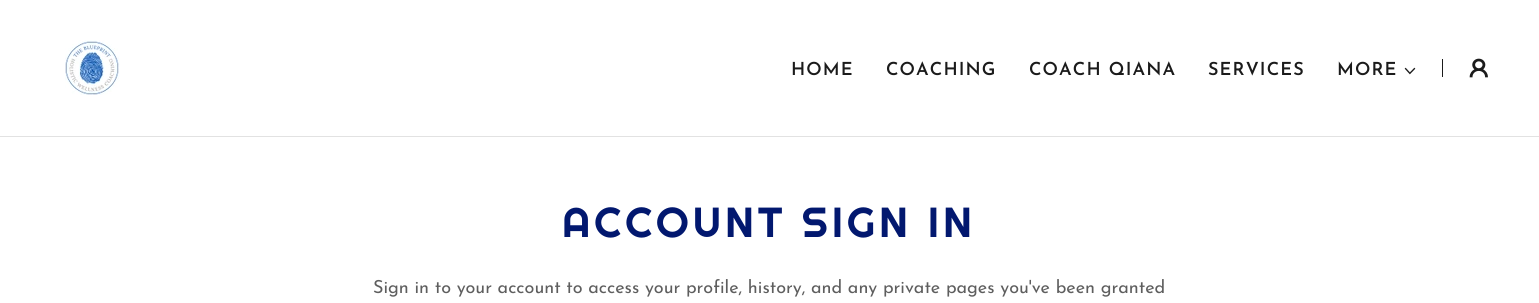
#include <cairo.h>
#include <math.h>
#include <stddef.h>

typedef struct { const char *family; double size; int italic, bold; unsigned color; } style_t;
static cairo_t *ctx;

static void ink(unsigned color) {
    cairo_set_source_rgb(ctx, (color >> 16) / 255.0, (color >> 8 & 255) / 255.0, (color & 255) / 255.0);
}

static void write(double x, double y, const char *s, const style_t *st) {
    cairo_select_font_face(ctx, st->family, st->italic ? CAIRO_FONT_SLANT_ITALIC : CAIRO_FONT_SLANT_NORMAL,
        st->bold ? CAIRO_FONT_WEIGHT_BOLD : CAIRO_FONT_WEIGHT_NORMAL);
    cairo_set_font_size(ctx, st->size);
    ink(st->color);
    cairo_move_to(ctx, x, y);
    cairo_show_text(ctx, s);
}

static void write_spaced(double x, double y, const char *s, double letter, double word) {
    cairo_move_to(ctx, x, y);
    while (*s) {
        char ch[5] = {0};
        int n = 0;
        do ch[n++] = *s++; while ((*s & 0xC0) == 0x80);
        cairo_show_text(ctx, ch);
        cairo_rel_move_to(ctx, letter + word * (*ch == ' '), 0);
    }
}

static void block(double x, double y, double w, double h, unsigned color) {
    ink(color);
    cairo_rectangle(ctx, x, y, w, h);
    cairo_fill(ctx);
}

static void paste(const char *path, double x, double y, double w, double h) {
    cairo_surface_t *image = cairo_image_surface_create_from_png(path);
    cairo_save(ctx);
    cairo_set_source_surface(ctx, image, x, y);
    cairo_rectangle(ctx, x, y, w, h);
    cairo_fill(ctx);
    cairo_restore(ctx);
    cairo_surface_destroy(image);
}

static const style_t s1 = {"Josefin Sans", 18, 0, 0, 0x5e5e5e};

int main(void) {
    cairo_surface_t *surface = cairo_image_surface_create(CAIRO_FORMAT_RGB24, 1539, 303);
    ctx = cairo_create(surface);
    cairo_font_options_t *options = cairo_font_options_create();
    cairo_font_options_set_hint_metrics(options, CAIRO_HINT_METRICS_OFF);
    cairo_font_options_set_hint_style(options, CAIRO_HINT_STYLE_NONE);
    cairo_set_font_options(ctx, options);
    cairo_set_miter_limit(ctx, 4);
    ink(0xffffff);
    cairo_paint(ctx);
    paste("pic1.png", 65, 40, 55, 55);
    cairo_select_font_face(ctx, "Josefin Sans SemiBold", CAIRO_FONT_SLANT_NORMAL, CAIRO_FONT_WEIGHT_NORMAL);
    cairo_set_font_size(ctx, 18);
    ink(0x1b1b1b);
    write_spaced(791, 75, "HOME", 1.1, 0);
    write_spaced(886, 75, "COACHING", 1.1, 0);
    write_spaced(1029, 75, "COACH QIANA", 1.1, 0);
    write_spaced(1208, 75, "SERVICES", 1.1, 0);
    write_spaced(1337, 75, "MORE", 1.1, 0);
    paste("pic2.png", 1404, 67, 12, 8);
    block(1442, 59, 1, 18, 0x1b1b1b);
    paste("pic3.png", 1469, 58, 19, 20);
    block(0, 136, 1539, 1, 0xe2e2e2);
    cairo_select_font_face(ctx, "Righteous", CAIRO_FONT_SLANT_NORMAL, CAIRO_FONT_WEIGHT_NORMAL);
    cairo_set_font_size(ctx, 42);
    ink(0x02186f);
    write_spaced(562, 237, "ACCOUNT SIGN IN", 4, 0);
    write(373, 293, "Sign in to your account to access your profile, history, and any private pages you've been granted", &s1);
    cairo_surface_write_to_png(surface, "screenshot.png");
    cairo_font_options_destroy(options);
    cairo_destroy(ctx);
    cairo_surface_destroy(surface);
    return 0;
}
